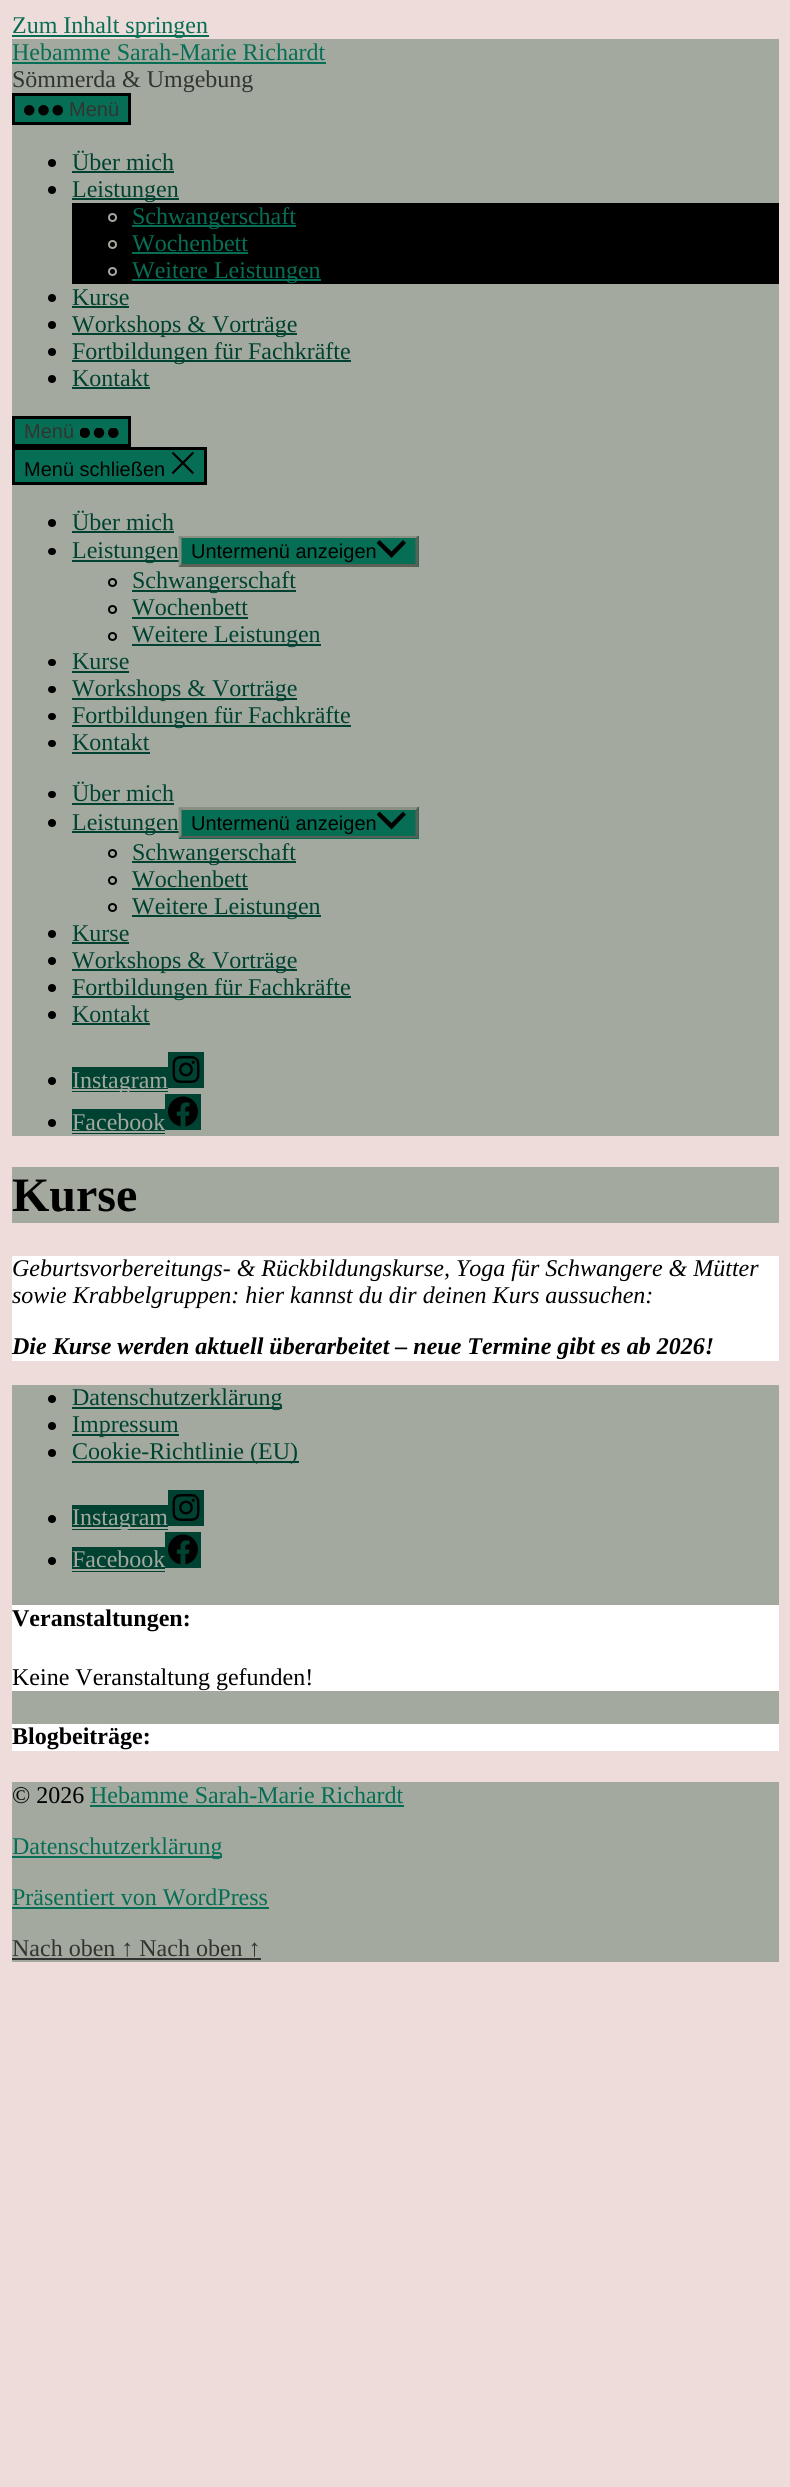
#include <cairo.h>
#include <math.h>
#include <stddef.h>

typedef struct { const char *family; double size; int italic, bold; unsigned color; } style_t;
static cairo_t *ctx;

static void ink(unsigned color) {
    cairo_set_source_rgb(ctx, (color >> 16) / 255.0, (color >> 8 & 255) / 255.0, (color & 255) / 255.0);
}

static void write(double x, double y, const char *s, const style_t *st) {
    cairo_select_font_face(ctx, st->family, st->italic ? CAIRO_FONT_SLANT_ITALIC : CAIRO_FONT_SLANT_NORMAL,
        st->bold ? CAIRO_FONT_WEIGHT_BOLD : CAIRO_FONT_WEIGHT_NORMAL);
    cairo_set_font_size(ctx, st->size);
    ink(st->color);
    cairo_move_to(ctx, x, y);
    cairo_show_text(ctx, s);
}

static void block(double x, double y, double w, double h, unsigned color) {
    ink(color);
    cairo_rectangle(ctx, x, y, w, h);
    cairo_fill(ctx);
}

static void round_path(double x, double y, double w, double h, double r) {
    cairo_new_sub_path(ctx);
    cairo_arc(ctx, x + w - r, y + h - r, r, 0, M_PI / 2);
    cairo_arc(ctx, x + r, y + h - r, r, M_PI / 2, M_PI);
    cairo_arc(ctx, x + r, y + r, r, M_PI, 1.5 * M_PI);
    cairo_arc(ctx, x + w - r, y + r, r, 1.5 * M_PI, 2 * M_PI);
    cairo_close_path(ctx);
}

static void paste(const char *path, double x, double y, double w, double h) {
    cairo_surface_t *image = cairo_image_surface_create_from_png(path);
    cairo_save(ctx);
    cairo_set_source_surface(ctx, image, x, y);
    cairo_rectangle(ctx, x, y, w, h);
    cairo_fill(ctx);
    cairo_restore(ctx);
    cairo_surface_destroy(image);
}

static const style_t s1 = {"Liberation Serif", 24, 0, 0, 0x076e56};
static const style_t s2 = {"Liberation Serif", 24, 0, 0, 0x323431};
static const style_t s3 = {"Liberation Sans", 20, 0, 0, 0x323431};
static const style_t s4 = {"Liberation Serif", 24, 0, 0, 0x004232};
static const style_t s5 = {"Liberation Sans", 20, 0, 0, 0x000000};
static const style_t s6 = {"Liberation Serif", 24, 0, 0, 0xa3a99e};
static const style_t s7 = {"Liberation Serif", 48, 0, 1, 0x000000};
static const style_t s8 = {"Liberation Serif", 24, 1, 0, 0x000000};
static const style_t s9 = {"Liberation Serif", 24, 1, 1, 0x000000};
static const style_t s10 = {"Liberation Serif", 24, 0, 1, 0x000000};
static const style_t s11 = {"Liberation Serif", 24, 0, 0, 0x000000};

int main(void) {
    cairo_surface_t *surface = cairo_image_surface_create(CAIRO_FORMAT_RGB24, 790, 2487);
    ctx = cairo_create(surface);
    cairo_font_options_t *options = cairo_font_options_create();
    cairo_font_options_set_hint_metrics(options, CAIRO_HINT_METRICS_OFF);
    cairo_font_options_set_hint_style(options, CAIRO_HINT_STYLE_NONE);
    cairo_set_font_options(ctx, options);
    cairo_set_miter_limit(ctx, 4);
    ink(0xeddcda);
    cairo_paint(ctx);
    block(12, 35, 197, 2, 0x076e56);
    write(12, 33, "Zum Inhalt springen", &s1);
    block(12, 39, 767, 1097, 0xa3a99e);
    write(12, 60, "Hebamme Sarah-Marie Richardt", &s1);
    block(12, 62, 314, 2, 0x076e56);
    write(12, 87, "Sömmerda & Umgebung", &s2);
    ink(0x076e56);
    cairo_rectangle(ctx, 13.5, 94.5, 116, 29);
    cairo_fill_preserve(ctx);
    ink(0x000000);
    cairo_set_line_width(ctx, 3);
    cairo_stroke(ctx);
    paste("pic1.png", 24, 105, 39, 11);
    write(69, 116, "Menü", &s3);
    ink(0x000000);
    cairo_new_path(ctx);
    cairo_arc(ctx, 52, 163, 4, 0, 2 * M_PI);
    cairo_fill(ctx);
    write(72, 170, "Über mich", &s4);
    block(72, 171, 102, 2, 0x004232);
    ink(0x000000);
    cairo_new_path(ctx);
    cairo_arc(ctx, 52, 190, 4, 0, 2 * M_PI);
    cairo_fill(ctx);
    block(72, 198, 107, 2, 0x004232);
    write(72, 197, "Leistungen", &s4);
    block(72, 203, 707, 81, 0x000000);
    cairo_new_path(ctx);
    cairo_arc(ctx, 112.5, 217.5, 3.5, 0, 2 * M_PI);
    ink(0xa3a99e);
    cairo_set_line_width(ctx, 2);
    cairo_stroke(ctx);
    block(132, 225, 164, 2, 0x076e56);
    write(132, 224, "Schwangerschaft", &s1);
    cairo_new_path(ctx);
    cairo_arc(ctx, 112.5, 244.5, 3.5, 0, 2 * M_PI);
    ink(0xa3a99e);
    cairo_stroke(ctx);
    write(132, 251, "Wochenbett", &s1);
    block(132, 252, 116, 2, 0x076e56);
    cairo_new_path(ctx);
    cairo_arc(ctx, 112.5, 271.5, 3.5, 0, 2 * M_PI);
    ink(0xa3a99e);
    cairo_stroke(ctx);
    block(132, 279, 189, 2, 0x076e56);
    write(132, 278, "Weitere Leistungen", &s1);
    ink(0x000000);
    cairo_new_path(ctx);
    cairo_arc(ctx, 52, 298, 4, 0, 2 * M_PI);
    cairo_fill(ctx);
    write(72, 305, "Kurse", &s4);
    block(72, 306, 57, 2, 0x004232);
    ink(0x000000);
    cairo_new_path(ctx);
    cairo_arc(ctx, 52, 325, 4, 0, 2 * M_PI);
    cairo_fill(ctx);
    block(72, 333, 225, 2, 0x004232);
    write(72, 332, "Workshops & Vorträge", &s4);
    ink(0x000000);
    cairo_new_path(ctx);
    cairo_arc(ctx, 52, 352, 4, 0, 2 * M_PI);
    cairo_fill(ctx);
    block(72, 360, 279, 2, 0x004232);
    write(72, 359, "Fortbildungen für Fachkräfte", &s4);
    ink(0x000000);
    cairo_new_path(ctx);
    cairo_arc(ctx, 52, 379, 4, 0, 2 * M_PI);
    cairo_fill(ctx);
    write(72, 386, "Kontakt", &s4);
    block(72, 387, 78, 2, 0x004232);
    ink(0x076e56);
    cairo_rectangle(ctx, 13.5, 417.5, 116, 28);
    cairo_fill_preserve(ctx);
    ink(0x000000);
    cairo_set_line_width(ctx, 3);
    cairo_stroke(ctx);
    write(24, 438, "Menü", &s3);
    paste("pic2.png", 80, 428, 39, 10);
    ink(0x076e56);
    cairo_rectangle(ctx, 13.5, 448.5, 192, 35);
    cairo_fill_preserve(ctx);
    ink(0x000000);
    cairo_stroke(ctx);
    write(24, 476, "Menü schließen", &s5);
    paste("pic3.png", 171, 452, 23, 23);
    cairo_arc(ctx, 52, 523, 4, 0, 2 * M_PI);
    cairo_fill(ctx);
    write(72, 530, "Über mich", &s4);
    block(72, 531, 102, 2, 0x004232);
    ink(0x000000);
    round_path(48, 548, 8, 7, 3.5);
    cairo_fill(ctx);
    block(72, 560, 107, 2, 0x004232);
    write(72, 558, "Leistungen", &s4);
    block(179, 536, 240, 31, 0x076e56);
    ink(0x899082);
    cairo_new_path(ctx);
    cairo_move_to(ctx, 178, 536);
    cairo_line_to(ctx, 418, 536);
    cairo_line_to(ctx, 416, 538);
    cairo_line_to(ctx, 182, 538);
    cairo_close_path(ctx);
    cairo_fill(ctx);
    ink(0x5b6057);
    cairo_new_path(ctx);
    cairo_move_to(ctx, 418.5, 535.5);
    cairo_line_to(ctx, 418.5, 567);
    cairo_line_to(ctx, 415.5, 564);
    cairo_line_to(ctx, 415.5, 538.5);
    cairo_close_path(ctx);
    cairo_fill(ctx);
    cairo_new_path(ctx);
    cairo_move_to(ctx, 418, 567);
    cairo_line_to(ctx, 178, 567);
    cairo_line_to(ctx, 182, 564);
    cairo_line_to(ctx, 416, 564);
    cairo_close_path(ctx);
    cairo_fill(ctx);
    ink(0x899082);
    cairo_new_path(ctx);
    cairo_move_to(ctx, 178.5, 567);
    cairo_line_to(ctx, 178.5, 535.5);
    cairo_line_to(ctx, 181.5, 538.5);
    cairo_line_to(ctx, 181.5, 564);
    cairo_close_path(ctx);
    cairo_fill(ctx);
    write(191, 558, "Untermenü anzeigen", &s5);
    cairo_set_fill_rule(ctx, CAIRO_FILL_RULE_EVEN_ODD);
    cairo_new_path(ctx);
    cairo_move_to(ctx, 391.5, 551.5);
    cairo_line_to(ctx, 403, 540);
    cairo_line_to(ctx, 406, 543);
    cairo_line_to(ctx, 391.5, 558);
    cairo_line_to(ctx, 376.5, 543);
    cairo_line_to(ctx, 379.5, 540);
    cairo_close_path(ctx);
    cairo_fill(ctx);
    cairo_arc(ctx, 112.5, 582.5, 3.5, 0, 2 * M_PI);
    cairo_set_line_width(ctx, 2);
    cairo_stroke(ctx);
    block(132, 590, 164, 2, 0x004232);
    write(132, 588, "Schwangerschaft", &s4);
    cairo_new_path(ctx);
    cairo_arc(ctx, 112.5, 609.5, 3.5, 0, 2 * M_PI);
    ink(0x000000);
    cairo_stroke(ctx);
    write(132, 615, "Wochenbett", &s4);
    block(132, 617, 116, 2, 0x004232);
    cairo_new_path(ctx);
    cairo_arc(ctx, 112.5, 636.5, 3.5, 0, 2 * M_PI);
    ink(0x000000);
    cairo_stroke(ctx);
    block(132, 644, 189, 2, 0x004232);
    write(132, 642, "Weitere Leistungen", &s4);
    ink(0x000000);
    round_path(48, 659, 8, 7, 3.5);
    cairo_fill(ctx);
    write(72, 669, "Kurse", &s4);
    block(72, 671, 57, 2, 0x004232);
    ink(0x000000);
    round_path(48, 686, 8, 7, 3.5);
    cairo_fill(ctx);
    block(72, 698, 225, 2, 0x004232);
    write(72, 696, "Workshops & Vorträge", &s4);
    ink(0x000000);
    round_path(48, 713, 8, 7, 3.5);
    cairo_fill(ctx);
    block(72, 725, 279, 2, 0x004232);
    write(72, 723, "Fortbildungen für Fachkräfte", &s4);
    ink(0x000000);
    round_path(48, 740, 8, 7, 3.5);
    cairo_fill(ctx);
    write(72, 750, "Kontakt", &s4);
    block(72, 752, 78, 2, 0x004232);
    ink(0x000000);
    round_path(48, 791, 8, 7, 3.5);
    cairo_fill(ctx);
    write(72, 801, "Über mich", &s4);
    block(72, 803, 102, 2, 0x004232);
    ink(0x000000);
    cairo_new_path(ctx);
    cairo_arc(ctx, 52, 823, 4, 0, 2 * M_PI);
    cairo_fill(ctx);
    block(72, 831, 107, 2, 0x004232);
    write(72, 830, "Leistungen", &s4);
    block(179, 807, 240, 32, 0x076e56);
    ink(0x899082);
    cairo_set_fill_rule(ctx, CAIRO_FILL_RULE_WINDING);
    cairo_new_path(ctx);
    cairo_move_to(ctx, 178, 807);
    cairo_line_to(ctx, 418, 807);
    cairo_line_to(ctx, 416, 810);
    cairo_line_to(ctx, 182, 810);
    cairo_close_path(ctx);
    cairo_fill(ctx);
    ink(0x5b6057);
    cairo_new_path(ctx);
    cairo_move_to(ctx, 418.5, 807);
    cairo_line_to(ctx, 418.5, 838.5);
    cairo_line_to(ctx, 415.5, 835.5);
    cairo_line_to(ctx, 415.5, 810);
    cairo_close_path(ctx);
    cairo_fill(ctx);
    cairo_new_path(ctx);
    cairo_move_to(ctx, 418, 838);
    cairo_line_to(ctx, 178, 838);
    cairo_line_to(ctx, 182, 836);
    cairo_line_to(ctx, 416, 836);
    cairo_close_path(ctx);
    cairo_fill(ctx);
    ink(0x899082);
    cairo_new_path(ctx);
    cairo_move_to(ctx, 178.5, 838.5);
    cairo_line_to(ctx, 178.5, 807);
    cairo_line_to(ctx, 181.5, 810);
    cairo_line_to(ctx, 181.5, 835.5);
    cairo_close_path(ctx);
    cairo_fill(ctx);
    write(191, 830, "Untermenü anzeigen", &s5);
    cairo_save(ctx);
    cairo_rectangle(ctx, 377, 812, 30, 18);
    cairo_clip(ctx);
    cairo_set_fill_rule(ctx, CAIRO_FILL_RULE_EVEN_ODD);
    cairo_new_path(ctx);
    cairo_move_to(ctx, 391.5, 823);
    cairo_line_to(ctx, 403, 811.5);
    cairo_line_to(ctx, 406, 814.5);
    cairo_line_to(ctx, 391.5, 829.5);
    cairo_line_to(ctx, 376.5, 814.5);
    cairo_line_to(ctx, 379.5, 811.5);
    cairo_close_path(ctx);
    cairo_fill(ctx);
    cairo_restore(ctx);
    cairo_arc(ctx, 112.5, 853.5, 3.5, 0, 2 * M_PI);
    cairo_stroke(ctx);
    block(132, 861, 164, 2, 0x004232);
    write(132, 860, "Schwangerschaft", &s4);
    cairo_new_path(ctx);
    cairo_arc(ctx, 112.5, 880.5, 3.5, 0, 2 * M_PI);
    ink(0x000000);
    cairo_stroke(ctx);
    write(132, 887, "Wochenbett", &s4);
    block(132, 888, 116, 2, 0x004232);
    cairo_new_path(ctx);
    cairo_arc(ctx, 112.5, 907.5, 3.5, 0, 2 * M_PI);
    ink(0x000000);
    cairo_stroke(ctx);
    block(132, 915, 189, 2, 0x004232);
    write(132, 914, "Weitere Leistungen", &s4);
    ink(0x000000);
    cairo_new_path(ctx);
    cairo_arc(ctx, 52, 934, 4, 0, 2 * M_PI);
    cairo_fill(ctx);
    write(72, 941, "Kurse", &s4);
    block(72, 942, 57, 2, 0x004232);
    ink(0x000000);
    cairo_new_path(ctx);
    cairo_arc(ctx, 52, 961, 4, 0, 2 * M_PI);
    cairo_fill(ctx);
    block(72, 969, 225, 2, 0x004232);
    write(72, 968, "Workshops & Vorträge", &s4);
    ink(0x000000);
    cairo_new_path(ctx);
    cairo_arc(ctx, 52, 988, 4, 0, 2 * M_PI);
    cairo_fill(ctx);
    block(72, 996, 279, 2, 0x004232);
    write(72, 995, "Fortbildungen für Fachkräfte", &s4);
    ink(0x000000);
    cairo_new_path(ctx);
    cairo_arc(ctx, 52, 1015, 4, 0, 2 * M_PI);
    cairo_fill(ctx);
    write(72, 1022, "Kontakt", &s4);
    block(72, 1023, 78, 2, 0x004232);
    ink(0x000000);
    cairo_new_path(ctx);
    cairo_arc(ctx, 52, 1081, 4, 0, 2 * M_PI);
    cairo_fill(ctx);
    block(72, 1067, 96, 25, 0x004232);
    block(72, 1089, 96, 2, 0xa3a99e);
    write(72, 1088, "Instagram", &s6);
    block(168, 1052, 36, 36, 0x004232);
    paste("pic4.png", 172, 1056, 28, 27);
    ink(0x000000);
    cairo_arc(ctx, 52, 1123, 4, 0, 2 * M_PI);
    cairo_fill(ctx);
    block(72, 1109, 93, 25, 0x004232);
    block(165, 1094, 36, 36, 0x004232);
    write(72, 1130, "Facebook", &s6);
    block(72, 1131, 93, 2, 0xa3a99e);
    paste("pic5.png", 168, 1096, 30, 31);
    block(12, 1167, 767, 56, 0xa3a99e);
    write(12, 1211, "Kurse", &s7);
    block(12, 1256, 767, 105, 0xffffff);
    write(12, 1276, "Geburtsvorbereitungs- & Rückbildungskurse, Yoga für Schwangere & Mütter", &s8);
    write(12, 1303, "sowie Krabbelgruppen: hier kannst du dir deinen Kurs aussuchen:", &s8);
    write(12, 1354, "Die Kurse werden aktuell überarbeitet – neue Termine gibt es ab 2026!", &s9);
    block(12, 1385, 767, 339, 0xa3a99e);
    ink(0x000000);
    cairo_new_path(ctx);
    cairo_arc(ctx, 52, 1399, 4, 0, 2 * M_PI);
    cairo_fill(ctx);
    block(72, 1407, 210, 2, 0x004232);
    write(72, 1405, "Datenschutzerklärung", &s4);
    ink(0x000000);
    cairo_new_path(ctx);
    cairo_arc(ctx, 52, 1426, 4, 0, 2 * M_PI);
    cairo_fill(ctx);
    block(72, 1434, 107, 2, 0x004232);
    write(72, 1432, "Impressum", &s4);
    ink(0x000000);
    cairo_new_path(ctx);
    cairo_arc(ctx, 52, 1453, 4, 0, 2 * M_PI);
    cairo_fill(ctx);
    block(72, 1461, 227, 2, 0x004232);
    write(72, 1459, "Cookie-Richtlinie (EU)", &s4);
    ink(0x000000);
    cairo_new_path(ctx);
    cairo_arc(ctx, 52, 1519, 4, 0, 2 * M_PI);
    cairo_fill(ctx);
    block(72, 1505, 96, 25, 0x004232);
    block(72, 1527, 96, 2, 0xa3a99e);
    write(72, 1525, "Instagram", &s6);
    block(168, 1490, 36, 36, 0x004232);
    paste("pic4.png", 172, 1494, 28, 27);
    ink(0x000000);
    cairo_arc(ctx, 52, 1561, 4, 0, 2 * M_PI);
    cairo_fill(ctx);
    block(72, 1547, 93, 25, 0x004232);
    block(165, 1532, 36, 36, 0x004232);
    write(72, 1567, "Facebook", &s6);
    block(72, 1569, 93, 2, 0xa3a99e);
    paste("pic5.png", 168, 1534, 30, 31);
    block(12, 1605, 767, 86, 0xffffff);
    write(12, 1626, "Veranstaltungen:", &s10);
    write(12, 1685, "Keine Veranstaltung gefunden!", &s11);
    block(12, 1724, 767, 27, 0xffffff);
    write(12, 1744, "Blogbeiträge:", &s10);
    block(12, 1782, 767, 180, 0xa3a99e);
    write(12, 1803, "© 2026", &s11);
    write(90, 1803, "Hebamme Sarah-Marie Richardt", &s1);
    block(90, 1805, 314, 2, 0x076e56);
    block(12, 1856, 210, 2, 0x076e56);
    write(12, 1854, "Datenschutzerklärung", &s1);
    write(12, 1905, "Präsentiert von WordPress", &s1);
    block(12, 1907, 257, 2, 0x076e56);
    write(12, 1956, "Nach oben ↑ Nach oben ↑", &s2);
    block(12, 1958, 249, 2, 0x323431);
    cairo_surface_write_to_png(surface, "screenshot.png");
    cairo_font_options_destroy(options);
    cairo_destroy(ctx);
    cairo_surface_destroy(surface);
    return 0;
}
